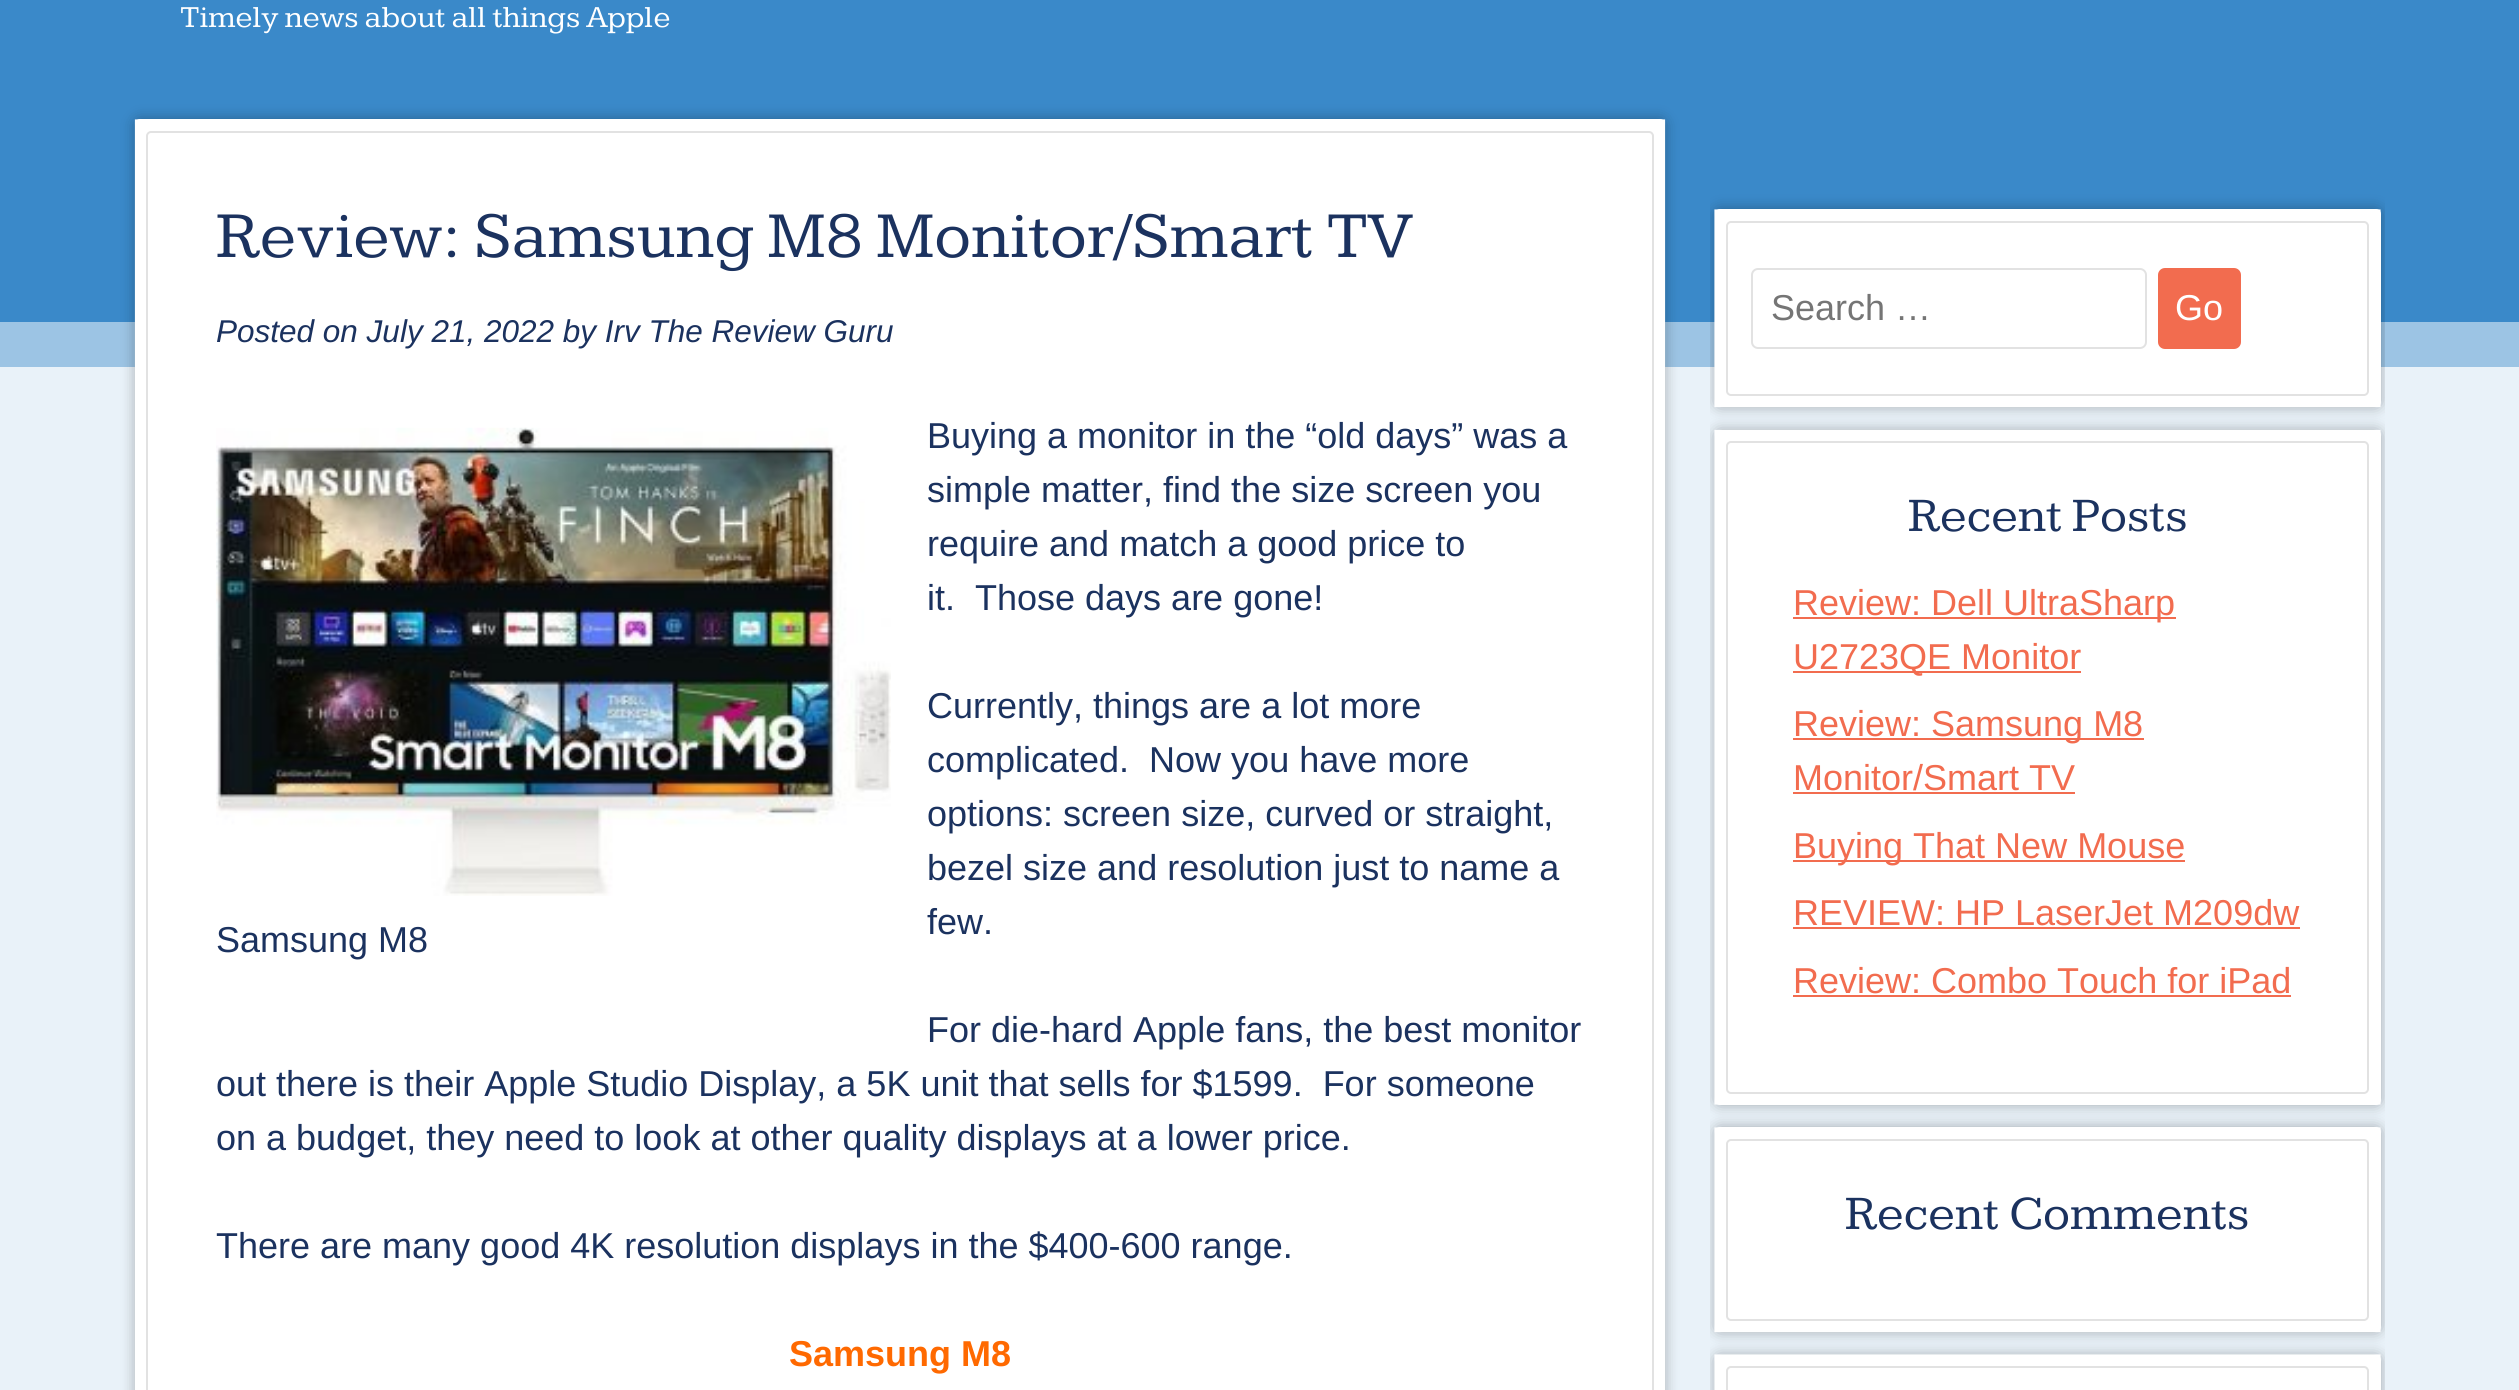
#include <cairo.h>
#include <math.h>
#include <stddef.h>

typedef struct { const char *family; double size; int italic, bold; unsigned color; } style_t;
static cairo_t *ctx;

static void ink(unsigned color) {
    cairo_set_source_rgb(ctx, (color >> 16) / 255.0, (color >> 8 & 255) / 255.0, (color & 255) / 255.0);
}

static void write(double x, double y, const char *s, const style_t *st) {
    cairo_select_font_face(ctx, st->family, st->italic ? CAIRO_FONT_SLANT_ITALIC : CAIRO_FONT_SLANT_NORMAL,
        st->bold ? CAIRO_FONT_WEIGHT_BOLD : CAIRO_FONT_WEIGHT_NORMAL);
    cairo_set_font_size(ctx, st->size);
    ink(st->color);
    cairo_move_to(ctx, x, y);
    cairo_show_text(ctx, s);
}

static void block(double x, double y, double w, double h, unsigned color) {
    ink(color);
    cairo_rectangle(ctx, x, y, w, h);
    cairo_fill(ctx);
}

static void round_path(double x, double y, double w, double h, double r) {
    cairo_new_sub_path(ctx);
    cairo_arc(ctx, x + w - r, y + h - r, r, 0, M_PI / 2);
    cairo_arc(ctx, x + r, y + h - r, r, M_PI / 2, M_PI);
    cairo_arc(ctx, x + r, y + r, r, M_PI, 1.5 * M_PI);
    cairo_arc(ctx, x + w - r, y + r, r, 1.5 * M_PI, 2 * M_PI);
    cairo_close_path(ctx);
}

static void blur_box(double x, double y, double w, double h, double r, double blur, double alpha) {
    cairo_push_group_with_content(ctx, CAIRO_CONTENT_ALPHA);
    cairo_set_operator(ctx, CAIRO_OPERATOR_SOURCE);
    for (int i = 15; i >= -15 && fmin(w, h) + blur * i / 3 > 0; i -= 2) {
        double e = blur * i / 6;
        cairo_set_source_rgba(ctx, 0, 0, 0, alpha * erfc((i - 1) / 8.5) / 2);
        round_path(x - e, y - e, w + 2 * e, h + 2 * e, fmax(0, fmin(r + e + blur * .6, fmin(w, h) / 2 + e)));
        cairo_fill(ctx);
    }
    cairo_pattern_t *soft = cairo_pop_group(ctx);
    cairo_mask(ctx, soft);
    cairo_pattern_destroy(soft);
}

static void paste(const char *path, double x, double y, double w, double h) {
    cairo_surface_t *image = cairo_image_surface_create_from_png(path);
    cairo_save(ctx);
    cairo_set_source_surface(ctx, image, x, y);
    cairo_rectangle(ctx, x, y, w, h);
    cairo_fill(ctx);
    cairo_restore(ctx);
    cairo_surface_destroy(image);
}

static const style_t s1 = {"Kameron", 31.5, 0, 0, 0xffffff};
static const style_t s2 = {"Kameron", 67.5, 0, 0, 0x1b325f};
static const style_t s3 = {"Liberation Sans", 31.5, 1, 0, 0x1b325f};
static const style_t s4 = {"Liberation Sans", 36, 0, 0, 0x1b325f};
static const style_t s5 = {"Liberation Sans", 36, 0, 1, 0xff6900};
static const style_t s6 = {"Liberation Sans", 36, 0, 0, 0x757575};
static const style_t s7 = {"Liberation Sans", 36, 0, 0, 0xffffff};
static const style_t s8 = {"Kameron", 49.5, 0, 0, 0x1b325f};
static const style_t s9 = {"Liberation Sans", 36, 0, 0, 0xf26c4f};

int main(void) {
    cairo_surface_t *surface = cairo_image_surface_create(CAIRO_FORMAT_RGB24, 2519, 1390);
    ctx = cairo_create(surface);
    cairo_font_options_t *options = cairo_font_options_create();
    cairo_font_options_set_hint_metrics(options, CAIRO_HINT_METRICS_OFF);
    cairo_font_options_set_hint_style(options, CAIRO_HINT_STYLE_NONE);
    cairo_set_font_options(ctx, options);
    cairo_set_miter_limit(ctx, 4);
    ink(0x3a89c9);
    cairo_paint(ctx);
    block(0, 322, 2519, 45, 0x9cc4e4);
    write(180, 27, "Timely news about all things Apple", &s1);
    block(0, 367, 2519, 1023, 0xe9f2f9);
    ink(0x000000);
    blur_box(135, 119, 1530, 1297, 5, 7, 0.3);
    ink(0xffffff);
    round_path(135, 119, 1530, 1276, 5);
    cairo_fill(ctx);
    cairo_new_path(ctx);
    cairo_move_to(ctx, 140.5, 125);
    cairo_line_to(ctx, 1659.5, 125);
    cairo_line_to(ctx, 1659.5, 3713.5);
    cairo_line_to(ctx, 140.5, 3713.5);
    cairo_close_path(ctx);
    cairo_set_line_width(ctx, 11.2);
    cairo_stroke(ctx);
    round_path(147, 132, 1506, 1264, 4);
    ink(0xe2e2e2);
    cairo_set_line_width(ctx, 2);
    cairo_stroke(ctx);
    write(216, 257, "Review: Samsung M8 Monitor/Smart TV", &s2);
    write(216, 342, "Posted on July 21, 2022 by Irv The Review Guru", &s3);
    write(927, 448, "Buying a monitor in the “old days” was a", &s4);
    write(927, 502, "simple matter, find the size screen you", &s4);
    write(927, 556, "require and match a good price to", &s4);
    write(927, 610, "it.  Those days are gone!", &s4);
    write(927, 718, "Currently, things are a lot more", &s4);
    write(927, 772, "complicated.  Now you have more", &s4);
    write(927, 826, "options: screen size, curved or straight,", &s4);
    write(927, 880, "bezel size and resolution just to name a", &s4);
    write(927, 934, "few.", &s4);
    paste("pic1.png", 216, 427, 675, 469);
    write(216, 952, "Samsung M8", &s4);
    write(927, 1042, "For die-hard Apple fans, the best monitor", &s4);
    write(216, 1096, "out there is their Apple Studio Display, a 5K unit that sells for $1599.  For someone", &s4);
    write(216, 1150, "on a budget, they need to look at other quality displays at a lower price.", &s4);
    write(216, 1258, "There are many good 4K resolution displays in the $400-600 range.", &s4);
    write(789, 1366, "Samsung M8", &s5);
    cairo_save(ctx);
    cairo_rectangle(ctx, 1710, 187, 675, 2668);
    cairo_clip(ctx);
    ink(0x000000);
    blur_box(1715, 209, 666, 198, 5, 7, 0.3);
    cairo_restore(ctx);
    ink(0xffffff);
    round_path(1715, 209, 666, 198, 5);
    cairo_fill(ctx);
    cairo_new_path(ctx);
    cairo_move_to(ctx, 1720, 215);
    cairo_line_to(ctx, 2375, 215);
    cairo_line_to(ctx, 2375, 401.5);
    cairo_line_to(ctx, 1720, 401.5);
    cairo_close_path(ctx);
    cairo_set_line_width(ctx, 11.2);
    cairo_stroke(ctx);
    round_path(1727, 222, 641, 173, 4);
    ink(0xe2e2e2);
    cairo_set_line_width(ctx, 2);
    cairo_stroke(ctx);
    round_path(1752, 269, 394, 79, 6);
    cairo_stroke(ctx);
    write(1771, 320, "Search …", &s6);
    ink(0xf26c4f);
    round_path(2158, 268, 83, 81, 7);
    cairo_fill(ctx);
    write(2175, 320, "Go", &s7);
    cairo_save(ctx);
    cairo_rectangle(ctx, 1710, 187, 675, 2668);
    cairo_clip(ctx);
    ink(0x000000);
    blur_box(1715, 430, 666, 675, 5, 7, 0.3);
    cairo_restore(ctx);
    round_path(1715, 430, 666, 675, 5);
    cairo_fill(ctx);
    cairo_new_path(ctx);
    cairo_move_to(ctx, 1720, 435.5);
    cairo_line_to(ctx, 2375, 435.5);
    cairo_line_to(ctx, 2375, 1099);
    cairo_line_to(ctx, 1720, 1099);
    cairo_close_path(ctx);
    cairo_set_line_width(ctx, 11.2);
    cairo_stroke(ctx);
    round_path(1727, 442, 641, 651, 4);
    ink(0xe2e2e2);
    cairo_set_line_width(ctx, 2);
    cairo_stroke(ctx);
    write(1908, 531, "Recent Posts", &s8);
    block(1793, 617, 383, 2, 0xf26c4f);
    write(1793, 615, "Review: Dell UltraSharp", &s9);
    block(1793, 671, 288, 2, 0xf26c4f);
    write(1793, 669, "U2723QE Monitor", &s9);
    block(1793, 738, 351, 2, 0xf26c4f);
    write(1793, 736, "Review: Samsung M8", &s9);
    write(1793, 790, "Monitor/Smart TV", &s9);
    block(1793, 792, 282, 2, 0xf26c4f);
    block(1793, 860, 392, 2, 0xf26c4f);
    write(1793, 858, "Buying That New Mouse", &s9);
    write(1793, 925, "REVIEW: HP LaserJet M209dw", &s9);
    block(1793, 927, 507, 2, 0xf26c4f);
    write(1793, 993, "Review: Combo Touch for iPad", &s9);
    block(1793, 995, 498, 2, 0xf26c4f);
    cairo_save(ctx);
    cairo_rectangle(ctx, 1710, 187, 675, 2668);
    cairo_clip(ctx);
    ink(0x000000);
    blur_box(1715, 1127, 666, 205, 5, 7, 0.3);
    cairo_restore(ctx);
    ink(0xffffff);
    round_path(1715, 1127, 666, 205, 5);
    cairo_fill(ctx);
    cairo_new_path(ctx);
    cairo_move_to(ctx, 1720, 1133);
    cairo_line_to(ctx, 2375, 1133);
    cairo_line_to(ctx, 2375, 1326.5);
    cairo_line_to(ctx, 1720, 1326.5);
    cairo_close_path(ctx);
    cairo_set_line_width(ctx, 11.2);
    cairo_stroke(ctx);
    round_path(1727, 1140, 641, 180, 4);
    ink(0xe2e2e2);
    cairo_set_line_width(ctx, 2);
    cairo_stroke(ctx);
    write(1845, 1229, "Recent Comments", &s8);
    cairo_save(ctx);
    cairo_rectangle(ctx, 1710, 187, 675, 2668);
    cairo_clip(ctx);
    ink(0x000000);
    blur_box(1715, 1355, 666, 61, 5, 7, 0.3);
    cairo_restore(ctx);
    ink(0xffffff);
    round_path(1715, 1355, 666, 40, 5);
    cairo_fill(ctx);
    cairo_new_path(ctx);
    cairo_move_to(ctx, 1720, 1360);
    cairo_line_to(ctx, 2375, 1360);
    cairo_line_to(ctx, 2375, 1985.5);
    cairo_line_to(ctx, 1720, 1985.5);
    cairo_close_path(ctx);
    cairo_set_line_width(ctx, 11.2);
    cairo_stroke(ctx);
    round_path(1727, 1367, 641, 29, 4);
    ink(0xe2e2e2);
    cairo_set_line_width(ctx, 2);
    cairo_stroke(ctx);
    cairo_surface_write_to_png(surface, "screenshot.png");
    cairo_font_options_destroy(options);
    cairo_destroy(ctx);
    cairo_surface_destroy(surface);
    return 0;
}
